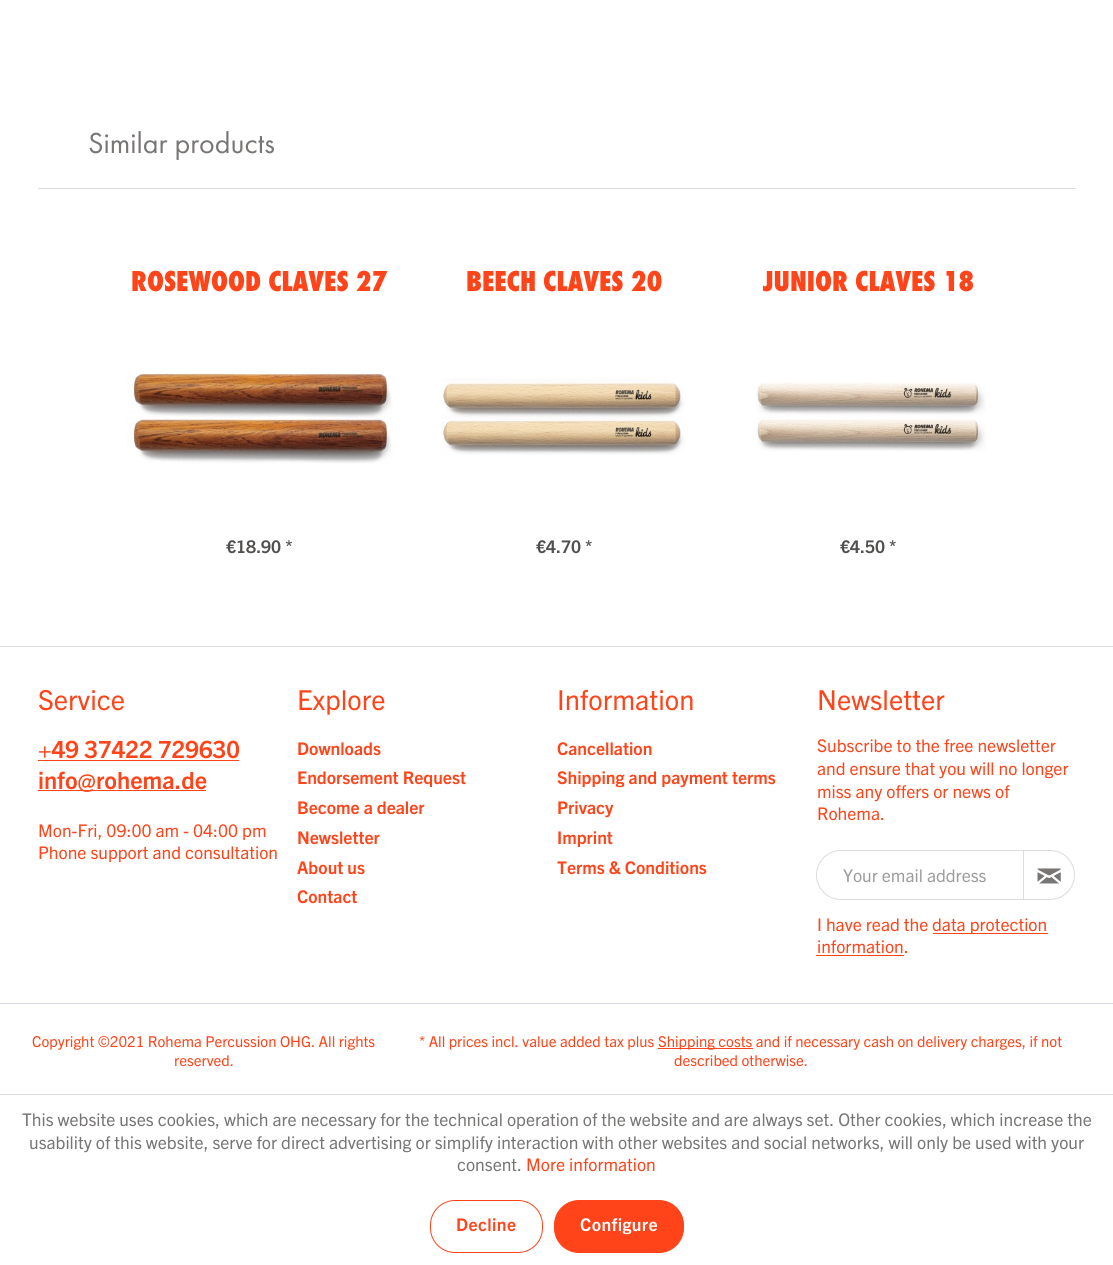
#include <cairo.h>
#include <math.h>
#include <stddef.h>

typedef struct { const char *family; double size; int italic, bold; unsigned color; } style_t;
static cairo_t *ctx;

static void ink(unsigned color) {
    cairo_set_source_rgb(ctx, (color >> 16) / 255.0, (color >> 8 & 255) / 255.0, (color & 255) / 255.0);
}

static void write(double x, double y, const char *s, const style_t *st) {
    cairo_select_font_face(ctx, st->family, st->italic ? CAIRO_FONT_SLANT_ITALIC : CAIRO_FONT_SLANT_NORMAL,
        st->bold ? CAIRO_FONT_WEIGHT_BOLD : CAIRO_FONT_WEIGHT_NORMAL);
    cairo_set_font_size(ctx, st->size);
    ink(st->color);
    cairo_move_to(ctx, x, y);
    cairo_show_text(ctx, s);
}

static void write_spaced(double x, double y, const char *s, double letter, double word) {
    cairo_move_to(ctx, x, y);
    while (*s) {
        char ch[5] = {0};
        int n = 0;
        do ch[n++] = *s++; while ((*s & 0xC0) == 0x80);
        cairo_show_text(ctx, ch);
        cairo_rel_move_to(ctx, letter + word * (*ch == ' '), 0);
    }
}

static void block(double x, double y, double w, double h, unsigned color) {
    ink(color);
    cairo_rectangle(ctx, x, y, w, h);
    cairo_fill(ctx);
}

static void round_path(double x, double y, double w, double h, double r) {
    cairo_new_sub_path(ctx);
    cairo_arc(ctx, x + w - r, y + h - r, r, 0, M_PI / 2);
    cairo_arc(ctx, x + r, y + h - r, r, M_PI / 2, M_PI);
    cairo_arc(ctx, x + r, y + r, r, M_PI, 1.5 * M_PI);
    cairo_arc(ctx, x + w - r, y + r, r, 1.5 * M_PI, 2 * M_PI);
    cairo_close_path(ctx);
}

static void paste(const char *path, double x, double y, double w, double h) {
    cairo_surface_t *image = cairo_image_surface_create_from_png(path);
    cairo_save(ctx);
    cairo_set_source_surface(ctx, image, x, y);
    cairo_rectangle(ctx, x, y, w, h);
    cairo_fill(ctx);
    cairo_restore(ctx);
    cairo_surface_destroy(image);
}

static const style_t s1 = {"Futura PT", 30, 0, 0, 0x787675};
static const style_t s2 = {"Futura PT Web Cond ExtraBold", 30, 0, 0, 0xff441a};
static const style_t s3 = {"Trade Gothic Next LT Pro", 17.5, 0, 1, 0x51504f};
static const style_t s4 = {"Trade Gothic Next LT Pro", 27.5, 0, 0, 0xff441a};
static const style_t s5 = {"Trade Gothic Next LT Pro", 23.75, 0, 1, 0xff441a};
static const style_t s6 = {"Trade Gothic Next LT Pro", 17.5, 0, 0, 0xff441a};
static const style_t s7 = {"Trade Gothic Next LT Pro", 17.5, 0, 1, 0xff441a};
static const style_t s8 = {"Trade Gothic Next LT Pro", 17.5, 0, 0, 0x9e9c9c};
static const style_t s9 = {"Trade Gothic Next LT Pro", 15, 0, 0, 0xff441a};
static const style_t s10 = {"Trade Gothic Next LT Pro", 17.5, 0, 0, 0x787675};

int main(void) {
    cairo_surface_t *surface = cairo_image_surface_create(CAIRO_FORMAT_RGB24, 1113, 1265);
    ctx = cairo_create(surface);
    cairo_font_options_t *options = cairo_font_options_create();
    cairo_font_options_set_hint_metrics(options, CAIRO_HINT_METRICS_OFF);
    cairo_font_options_set_hint_style(options, CAIRO_HINT_STYLE_NONE);
    cairo_set_font_options(ctx, options);
    cairo_set_miter_limit(ctx, 4);
    ink(0xffffff);
    cairo_paint(ctx);
    block(38, 188, 1038, 1, 0xdcdcdc);
    write(88, 153, "Similar products", &s1);
    write(131, 291, "ROSEWOOD CLAVES 27", &s2);
    paste("pic1.png", 126, 373, 267, 91);
    write(226, 553, "€18.90 *", &s3);
    write(466, 291, "BEECH CLAVES 20", &s2);
    paste("pic2.png", 441, 378, 245, 77);
    write(536, 553, "€4.70 *", &s3);
    cairo_save(ctx);
    cairo_rectangle(ctx, 763, 266, 211, 28);
    cairo_clip(ctx);
    write(763, 291, "JUNIOR CLAVES 18", &s2);
    cairo_restore(ctx);
    paste("pic3.png", 756, 382, 230, 69);
    write(840, 553, "€4.50 *", &s3);
    block(0, 646, 1113, 1, 0xdcdcdc);
    block(0, 1003, 1113, 1, 0xdadae5);
    write(38, 710, "Service", &s4);
    write(38, 758, "+49 37422 729630", &s5);
    block(38, 760, 201, 1, 0xff441a);
    block(38, 790, 168, 1, 0xff441a);
    write(38, 789, "info@rohema.de", &s5);
    write(38, 837, "Mon-Fri, 09:00 am - 04:00 pm", &s6);
    write(38, 859, "Phone support and consultation", &s6);
    write(297, 710, "Explore", &s4);
    write(297, 755, "Downloads", &s7);
    write(297, 784, "Endorsement Request", &s7);
    write(297, 814, "Become a dealer", &s7);
    write(297, 844, "Newsletter", &s7);
    write(297, 874, "About us", &s7);
    write(297, 903, "Contact", &s7);
    write(557, 710, "Information", &s4);
    write(557, 755, "Cancellation", &s7);
    write(557, 784, "Shipping and payment terms", &s7);
    write(557, 814, "Privacy", &s7);
    write(557, 844, "Imprint", &s7);
    write(557, 874, "Terms & Conditions", &s7);
    write(817, 710, "Newsletter", &s4);
    write(817, 752, "Subscribe to the free newsletter", &s6);
    write(817, 775, "and ensure that you will no longer", &s6);
    write(817, 798, "miss any offers or news of", &s6);
    write(817, 820, "Rohema.", &s6);
    cairo_new_path(ctx);
    cairo_move_to(ctx, 841, 850.5);
    cairo_line_to(ctx, 1023.5, 850.5);
    cairo_line_to(ctx, 1023.5, 899.5);
    cairo_line_to(ctx, 841, 899.5);
    cairo_curve_to(ctx, 827.5, 899.5, 816.5, 888.5, 816.5, 875);
    cairo_curve_to(ctx, 816.5, 861.5, 827.5, 850.5, 841, 850.5);
    cairo_close_path(ctx);
    ink(0xdcdcdc);
    cairo_set_line_width(ctx, 1);
    cairo_stroke(ctx);
    write(843, 882, "Your email address", &s8);
    cairo_new_path(ctx);
    cairo_move_to(ctx, 1023.5, 850.5);
    cairo_line_to(ctx, 1050, 850.5);
    cairo_curve_to(ctx, 1063.5, 850.5, 1074.5, 861.5, 1074.5, 875);
    cairo_curve_to(ctx, 1074.5, 888.5, 1063.5, 899.5, 1050, 899.5);
    cairo_line_to(ctx, 1023.5, 899.5);
    cairo_close_path(ctx);
    ink(0xdcdcdc);
    cairo_stroke(ctx);
    paste("pic4.png", 1037, 868, 24, 16);
    write(817, 931, "I have read the", &s6);
    block(933, 933, 115, 1, 0xff441a);
    write(932, 931, "data protection", &s6);
    write(817, 953, "information.", &s6);
    block(816, 955, 88, 1, 0xff441a);
    write(32, 1047, "Copyright ©2021 Rohema Percussion OHG. All rights", &s9);
    write(174, 1066, "reserved.", &s9);
    write(419, 1047, "* All prices incl. value added tax plus", &s9);
    block(658, 1048, 95, 1, 0xff441a);
    write(658, 1047, "Shipping costs and if necessary cash on delivery charges, if not", &s9);
    write(674, 1066, "described otherwise.", &s9);
    block(0, 1094, 1113, 1, 0xdadae5);
    write(22, 1126, "This website uses cookies, which are necessary for the technical operation of the website and are always set. Other cookies, which increase the", &s10);
    write(29, 1149, "usability of this website, serve for direct advertising or simplify interaction with other websites and social networks, will only be used with your", &s10);
    write(457, 1171, "consent.", &s10);
    write(526, 1171, "More information", &s6);
    round_path(430.5, 1200.5, 112, 52, 24.5);
    cairo_stroke(ctx);
    cairo_select_font_face(ctx, "Trade Gothic Next LT Pro", CAIRO_FONT_SLANT_NORMAL, CAIRO_FONT_WEIGHT_BOLD);
    write_spaced(456, 1231, "Decline", 0.4, 0);
    round_path(554.5, 1200.5, 129, 52, 24.5);
    cairo_fill_preserve(ctx);
    cairo_stroke(ctx);
    ink(0xffffff);
    write_spaced(580, 1231, "Configure", 0.4, 0);
    cairo_surface_write_to_png(surface, "screenshot.png");
    cairo_font_options_destroy(options);
    cairo_destroy(ctx);
    cairo_surface_destroy(surface);
    return 0;
}
